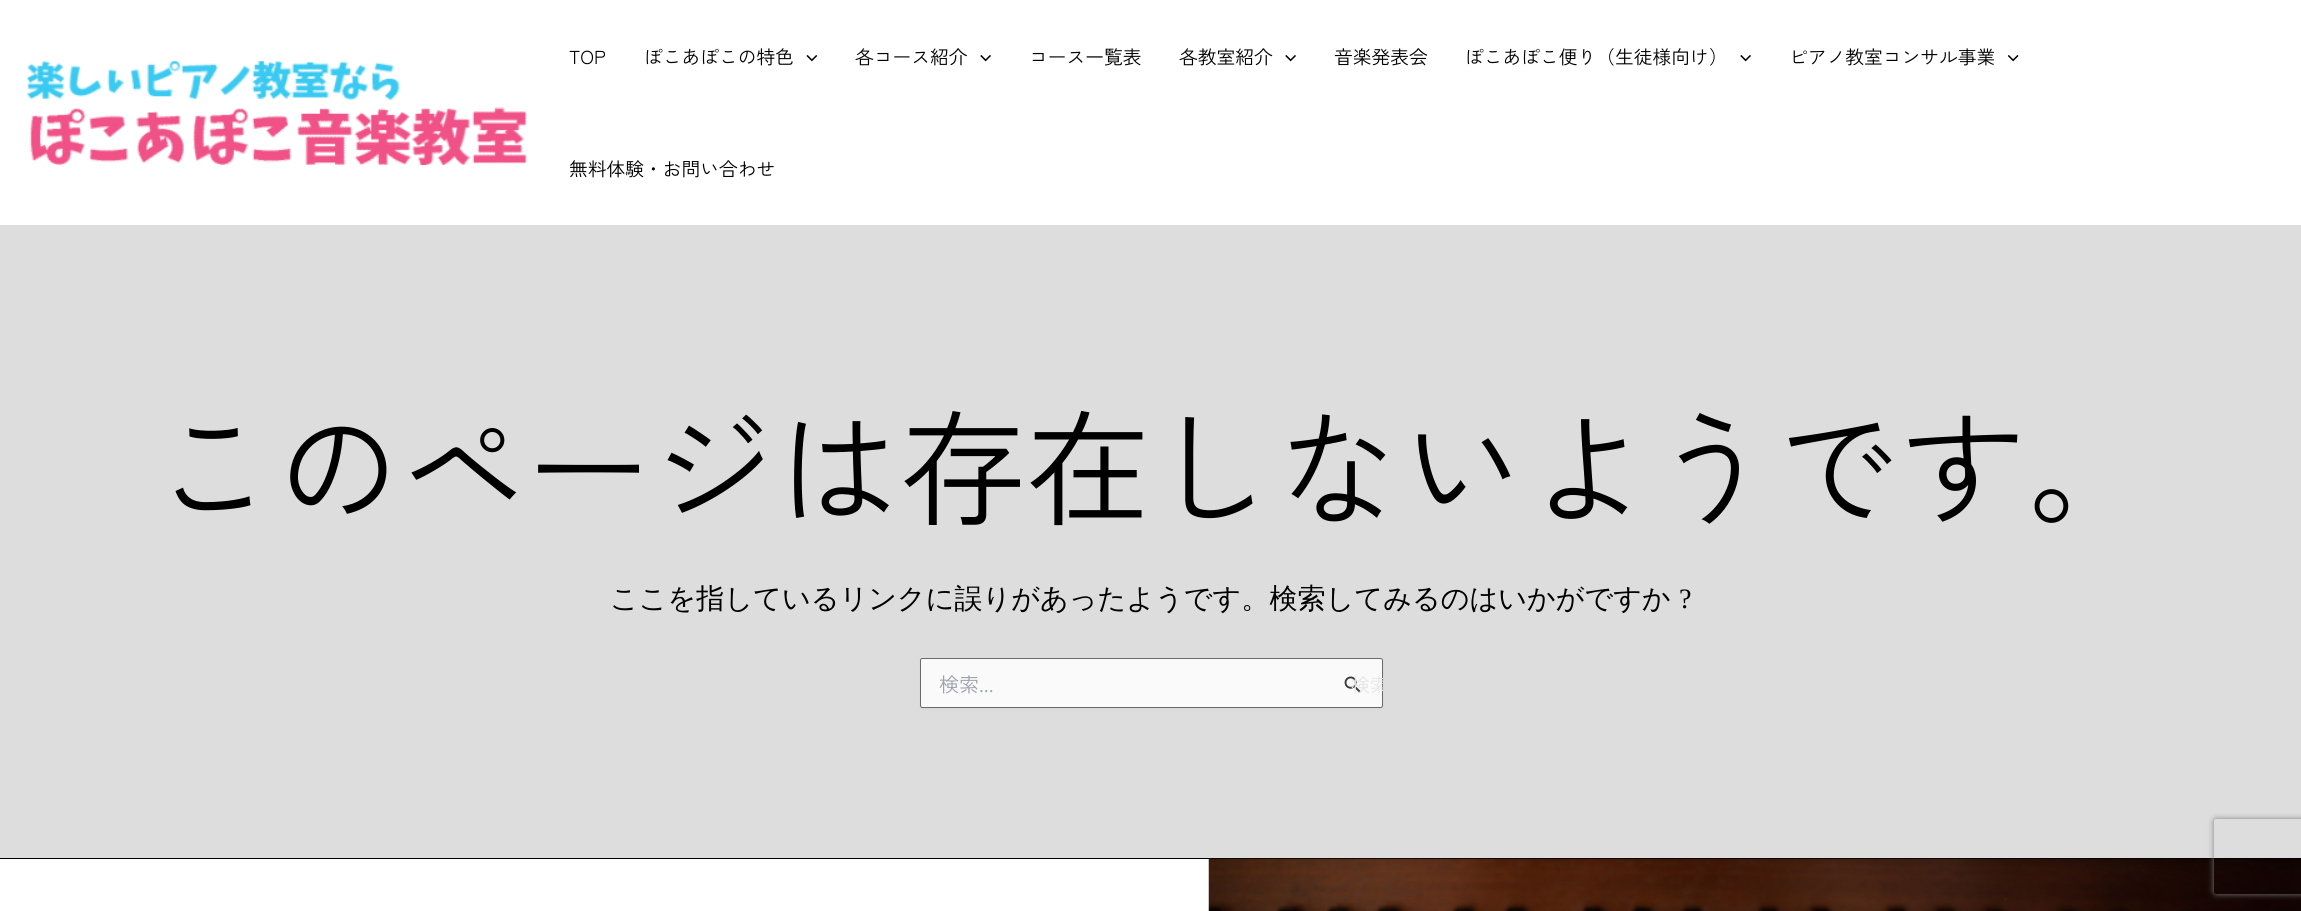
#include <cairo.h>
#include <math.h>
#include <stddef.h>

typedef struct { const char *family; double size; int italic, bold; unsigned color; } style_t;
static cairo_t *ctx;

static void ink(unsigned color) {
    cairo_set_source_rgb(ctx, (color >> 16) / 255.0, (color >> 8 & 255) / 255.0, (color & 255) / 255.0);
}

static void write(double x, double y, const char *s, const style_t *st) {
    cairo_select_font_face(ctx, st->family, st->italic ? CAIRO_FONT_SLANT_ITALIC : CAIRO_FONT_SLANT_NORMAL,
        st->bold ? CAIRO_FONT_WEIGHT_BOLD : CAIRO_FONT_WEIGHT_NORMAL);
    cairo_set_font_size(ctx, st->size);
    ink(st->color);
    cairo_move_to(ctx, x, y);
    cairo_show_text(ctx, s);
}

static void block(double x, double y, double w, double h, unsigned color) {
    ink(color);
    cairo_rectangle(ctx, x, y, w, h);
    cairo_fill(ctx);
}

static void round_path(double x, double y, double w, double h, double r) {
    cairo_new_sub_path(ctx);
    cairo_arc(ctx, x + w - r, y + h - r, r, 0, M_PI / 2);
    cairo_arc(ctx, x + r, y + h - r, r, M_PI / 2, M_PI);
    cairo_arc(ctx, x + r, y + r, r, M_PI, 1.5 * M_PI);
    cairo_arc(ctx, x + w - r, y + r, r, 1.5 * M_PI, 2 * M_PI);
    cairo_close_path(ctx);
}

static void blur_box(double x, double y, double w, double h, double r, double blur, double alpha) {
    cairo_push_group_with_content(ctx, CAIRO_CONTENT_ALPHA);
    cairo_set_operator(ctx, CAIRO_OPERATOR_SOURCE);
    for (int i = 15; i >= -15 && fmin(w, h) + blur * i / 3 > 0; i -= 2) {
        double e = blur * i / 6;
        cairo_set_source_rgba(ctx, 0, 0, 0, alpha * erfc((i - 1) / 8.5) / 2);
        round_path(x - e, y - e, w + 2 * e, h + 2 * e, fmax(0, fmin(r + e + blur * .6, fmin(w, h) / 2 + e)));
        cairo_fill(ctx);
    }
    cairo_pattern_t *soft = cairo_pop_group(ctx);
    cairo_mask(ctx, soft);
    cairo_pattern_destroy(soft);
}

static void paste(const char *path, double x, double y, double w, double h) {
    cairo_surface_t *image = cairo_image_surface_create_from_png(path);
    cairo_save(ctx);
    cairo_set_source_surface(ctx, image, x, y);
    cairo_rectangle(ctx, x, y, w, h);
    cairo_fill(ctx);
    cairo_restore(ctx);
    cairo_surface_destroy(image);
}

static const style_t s1 = {"Zen Kaku Gothic New", 18.75, 0, 0, 0x000000};
static const style_t s2 = {"Zen Kaku Gothic New", 125, 0, 0, 0x000000};
static const style_t s3 = {"WenQuanYi Zen Hei Medium", 28.1, 0, 0, 0x000000};
static const style_t s4 = {"Liberation Serif", 28.1, 0, 0, 0x000000};
static const style_t s5 = {"Zen Kaku Gothic New", 20, 0, 0, 0x9ca3af};
static const style_t s6 = {"Zen Kaku Gothic New", 18.75, 0, 0, 0xe6e6e6};

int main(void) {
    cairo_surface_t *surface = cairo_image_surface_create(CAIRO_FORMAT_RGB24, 2301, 911);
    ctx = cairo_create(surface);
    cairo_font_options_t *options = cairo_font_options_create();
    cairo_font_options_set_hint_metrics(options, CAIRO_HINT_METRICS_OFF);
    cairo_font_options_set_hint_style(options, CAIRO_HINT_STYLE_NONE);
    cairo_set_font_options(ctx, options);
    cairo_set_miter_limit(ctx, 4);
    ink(0xdddddd);
    cairo_paint(ctx);
    block(0, 0, 2301, 225, 0xffffff);
    paste("pic1.png", 26, 61, 501, 104);
    write(569, 64, "TOP", &s1);
    write(644, 64, "ぽこあぽこの特色", &s1);
    paste("pic2.png", 806, 55, 12, 7);
    write(855, 64, "各コース紹介", &s1);
    paste("pic3.png", 980, 55, 11, 7);
    write(1029, 64, "コース一覧表", &s1);
    write(1179, 64, "各教室紹介", &s1);
    paste("pic3.png", 1285, 55, 11, 7);
    write(1334, 64, "音楽発表会", &s1);
    write(1465, 64, "ぽこあぽこ便り（生徒様向け）", &s1);
    paste("pic3.png", 1740, 55, 11, 7);
    write(1789, 64, "ピアノ教室コンサル事業", &s1);
    paste("pic4.png", 2008, 55, 11, 7);
    write(569, 176, "無料体験・お問い合わせ", &s1);
    write(151, 516, "このページは存在しないようです。", &s2);
    write(610, 608, "ここを指しているリンクに誤りがあったようです。検索してみるのはいかがですか", &s3);
    write(1679, 608, "?", &s4);
    ink(0x000000);
    blur_box(920, 659, 463, 50, 2.5, 1, 0.05);
    ink(0xfafafa);
    round_path(920.5, 658.5, 462, 49, 2);
    cairo_fill_preserve(ctx);
    ink(0x6a6a6a);
    cairo_set_line_width(ctx, 1);
    cairo_stroke(ctx);
    write(939, 692, "検索...", &s5);
    paste("pic5.png", 1344, 676, 17, 17);
    cairo_save(ctx);
    round_path(1326, 658, 57, 51, 2.5);
    cairo_clip(ctx);
    write(1351, 692, "検索", &s6);
    cairo_restore(ctx);
    block(0, 859, 1209, 52, 0xffffff);
    block(0, 858, 2301, 1, 0x000000);
    paste("pic6.png", 1208, 858, 1093, 53);
    cairo_save(ctx);
    cairo_set_fill_rule(ctx, CAIRO_FILL_RULE_EVEN_ODD);
    cairo_new_path(ctx);
    cairo_move_to(ctx, 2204, 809);
    cairo_line_to(ctx, 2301, 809);
    cairo_line_to(ctx, 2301, 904);
    cairo_line_to(ctx, 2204, 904);
    cairo_close_path(ctx);
    cairo_move_to(ctx, 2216.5, 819);
    cairo_line_to(ctx, 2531.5, 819);
    cairo_curve_to(ctx, 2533, 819, 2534, 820, 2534, 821.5);
    cairo_line_to(ctx, 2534, 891.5);
    cairo_curve_to(ctx, 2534, 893, 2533, 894, 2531.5, 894);
    cairo_line_to(ctx, 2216.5, 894);
    cairo_curve_to(ctx, 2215, 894, 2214, 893, 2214, 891.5);
    cairo_line_to(ctx, 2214, 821.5);
    cairo_curve_to(ctx, 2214, 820, 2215, 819, 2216.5, 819);
    cairo_close_path(ctx);
    cairo_clip(ctx);
    ink(0x808080);
    blur_box(2214, 819, 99, 75, 2.5, 3, 1);
    cairo_restore(ctx);
    cairo_surface_write_to_png(surface, "screenshot.png");
    cairo_font_options_destroy(options);
    cairo_destroy(ctx);
    cairo_surface_destroy(surface);
    return 0;
}
